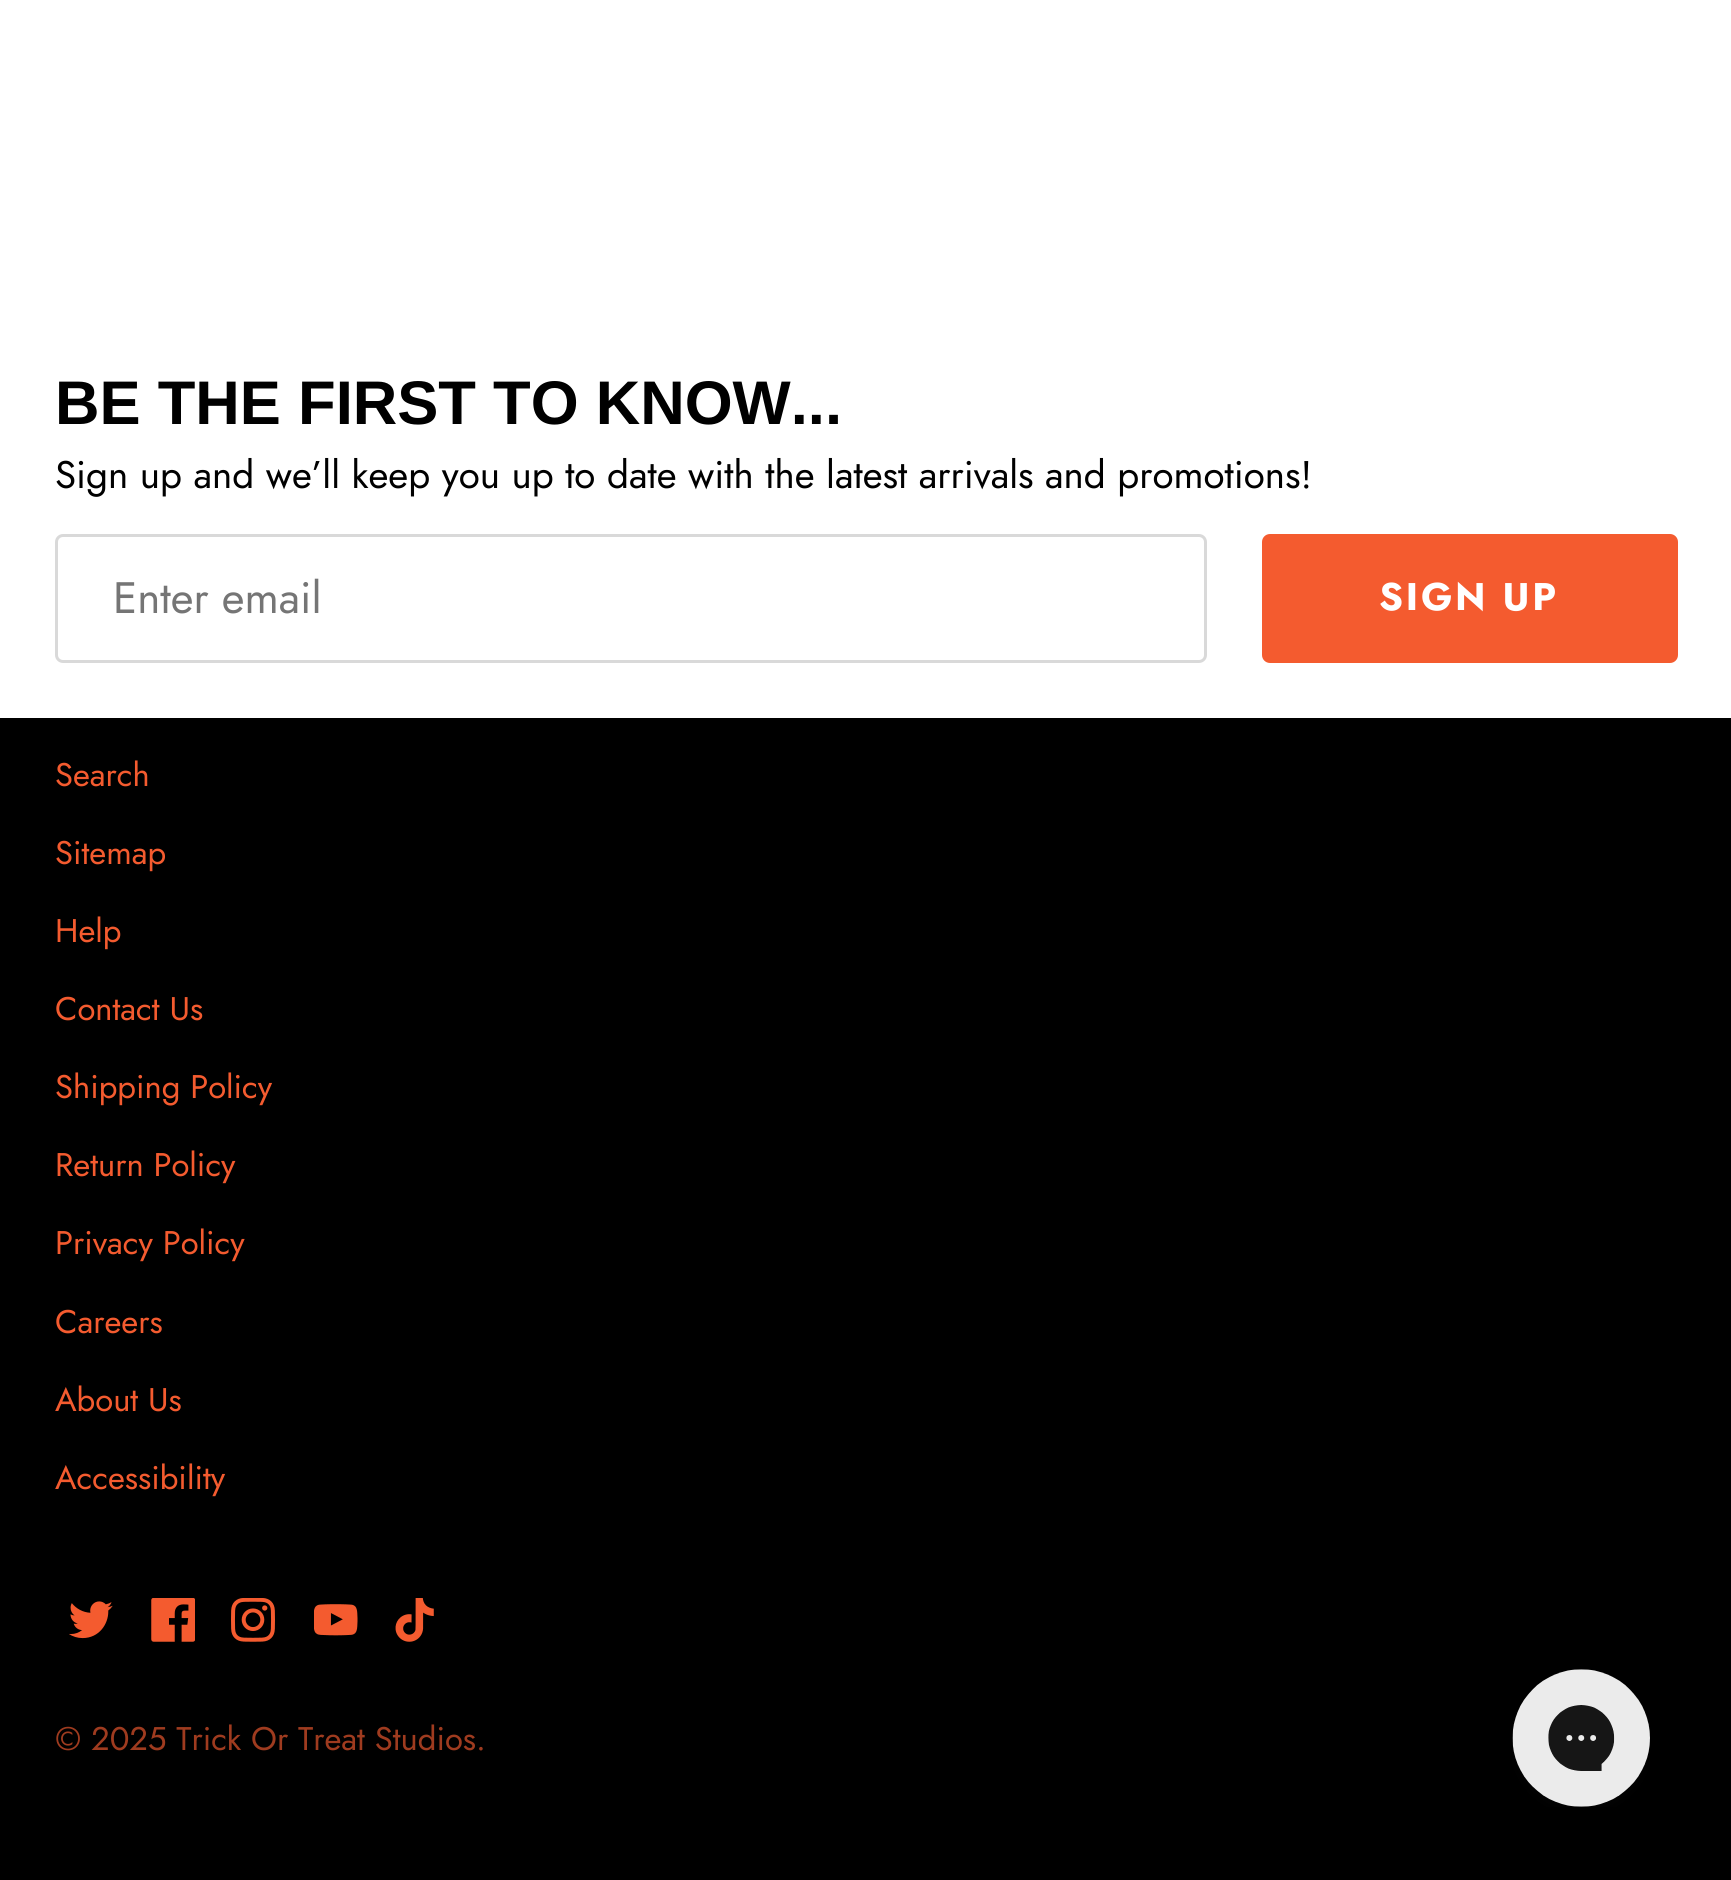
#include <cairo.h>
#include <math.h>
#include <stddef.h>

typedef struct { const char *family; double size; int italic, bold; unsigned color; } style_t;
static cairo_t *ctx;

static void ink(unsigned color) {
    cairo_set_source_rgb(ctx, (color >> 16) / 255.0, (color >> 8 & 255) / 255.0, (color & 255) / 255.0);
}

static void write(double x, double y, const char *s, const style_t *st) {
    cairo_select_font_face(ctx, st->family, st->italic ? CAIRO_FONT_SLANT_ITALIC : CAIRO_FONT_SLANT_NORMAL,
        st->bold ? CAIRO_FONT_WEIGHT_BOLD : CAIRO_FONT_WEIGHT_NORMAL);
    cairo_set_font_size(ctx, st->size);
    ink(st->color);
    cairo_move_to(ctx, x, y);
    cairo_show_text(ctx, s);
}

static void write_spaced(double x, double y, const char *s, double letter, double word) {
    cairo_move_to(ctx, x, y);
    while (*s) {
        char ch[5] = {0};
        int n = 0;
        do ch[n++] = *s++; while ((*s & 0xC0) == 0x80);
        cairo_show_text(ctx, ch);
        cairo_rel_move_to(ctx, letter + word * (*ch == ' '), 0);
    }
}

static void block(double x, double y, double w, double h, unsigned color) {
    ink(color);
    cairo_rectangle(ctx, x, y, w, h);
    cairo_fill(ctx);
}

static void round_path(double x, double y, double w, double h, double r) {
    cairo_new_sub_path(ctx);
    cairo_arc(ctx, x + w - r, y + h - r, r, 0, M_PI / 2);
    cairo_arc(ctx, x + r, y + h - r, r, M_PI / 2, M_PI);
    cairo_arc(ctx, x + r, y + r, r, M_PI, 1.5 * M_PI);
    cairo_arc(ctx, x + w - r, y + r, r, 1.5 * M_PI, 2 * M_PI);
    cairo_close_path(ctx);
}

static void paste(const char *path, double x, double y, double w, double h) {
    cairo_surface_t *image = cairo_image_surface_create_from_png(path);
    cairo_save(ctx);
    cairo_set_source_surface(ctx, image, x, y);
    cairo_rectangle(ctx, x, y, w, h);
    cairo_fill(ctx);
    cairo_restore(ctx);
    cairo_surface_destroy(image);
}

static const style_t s1 = {"Liberation Sans", 61.6, 0, 1, 0x000000};
static const style_t s2 = {"Jost", 38.5, 0, 0, 0x000000};
static const style_t s3 = {"Jost", 44, 0, 0, 0x757575};
static const style_t s4 = {"Jost", 32.75, 0, 0, 0xf45b2f};
static const style_t s5 = {"Jost", 32.75, 0, 0, 0x9f3b1f};

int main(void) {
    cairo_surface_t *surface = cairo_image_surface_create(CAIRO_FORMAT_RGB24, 1731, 1880);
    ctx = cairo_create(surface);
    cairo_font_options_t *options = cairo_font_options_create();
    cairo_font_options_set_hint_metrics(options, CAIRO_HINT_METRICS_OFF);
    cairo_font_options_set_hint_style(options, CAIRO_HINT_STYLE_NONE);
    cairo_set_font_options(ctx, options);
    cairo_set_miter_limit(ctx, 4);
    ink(0xffffff);
    cairo_paint(ctx);
    write(55, 424, "BE THE FIRST TO KNOW...", &s1);
    write(55, 488, "Sign up and we’ll keep you up to date with the latest arrivals and promotions!", &s2);
    round_path(56.5, 535.5, 1149, 126, 6.5);
    ink(0xd9d9d9);
    cairo_set_line_width(ctx, 3);
    cairo_stroke(ctx);
    write(113, 613, "Enter email", &s3);
    ink(0xf45b2f);
    round_path(1263.5, 535.5, 413, 126, 6.5);
    cairo_fill_preserve(ctx);
    cairo_stroke(ctx);
    cairo_select_font_face(ctx, "Jost", CAIRO_FONT_SLANT_NORMAL, CAIRO_FONT_WEIGHT_BOLD);
    cairo_set_font_size(ctx, 38.5);
    ink(0xffffff);
    write_spaced(1379, 610, "SIGN UP", 2.75, 0);
    block(0, 718, 1731, 1162, 0x000000);
    write(55, 786, "Search", &s4);
    write(55, 864, "Sitemap", &s4);
    write(55, 942, "Help", &s4);
    write(55, 1020, "Contact Us", &s4);
    write(55, 1098, "Shipping Policy", &s4);
    write(55, 1176, "Return Policy", &s4);
    write(55, 1254, "Privacy Policy", &s4);
    write(55, 1333, "Careers", &s4);
    write(55, 1411, "About Us", &s4);
    write(55, 1489, "Accessibility", &s4);
    paste("pic1.png", 69, 1601, 44, 38);
    paste("pic2.png", 151, 1598, 44, 44);
    paste("pic3.png", 231, 1598, 44, 44);
    paste("pic4.png", 314, 1604, 44, 32);
    paste("pic5.png", 395, 1598, 39, 44);
    write(55, 1750, "© 2025 Trick Or Treat Studios.", &s5);
    paste("pic6.png", 1512, 1669, 138, 138);
    cairo_surface_write_to_png(surface, "screenshot.png");
    cairo_font_options_destroy(options);
    cairo_destroy(ctx);
    cairo_surface_destroy(surface);
    return 0;
}
